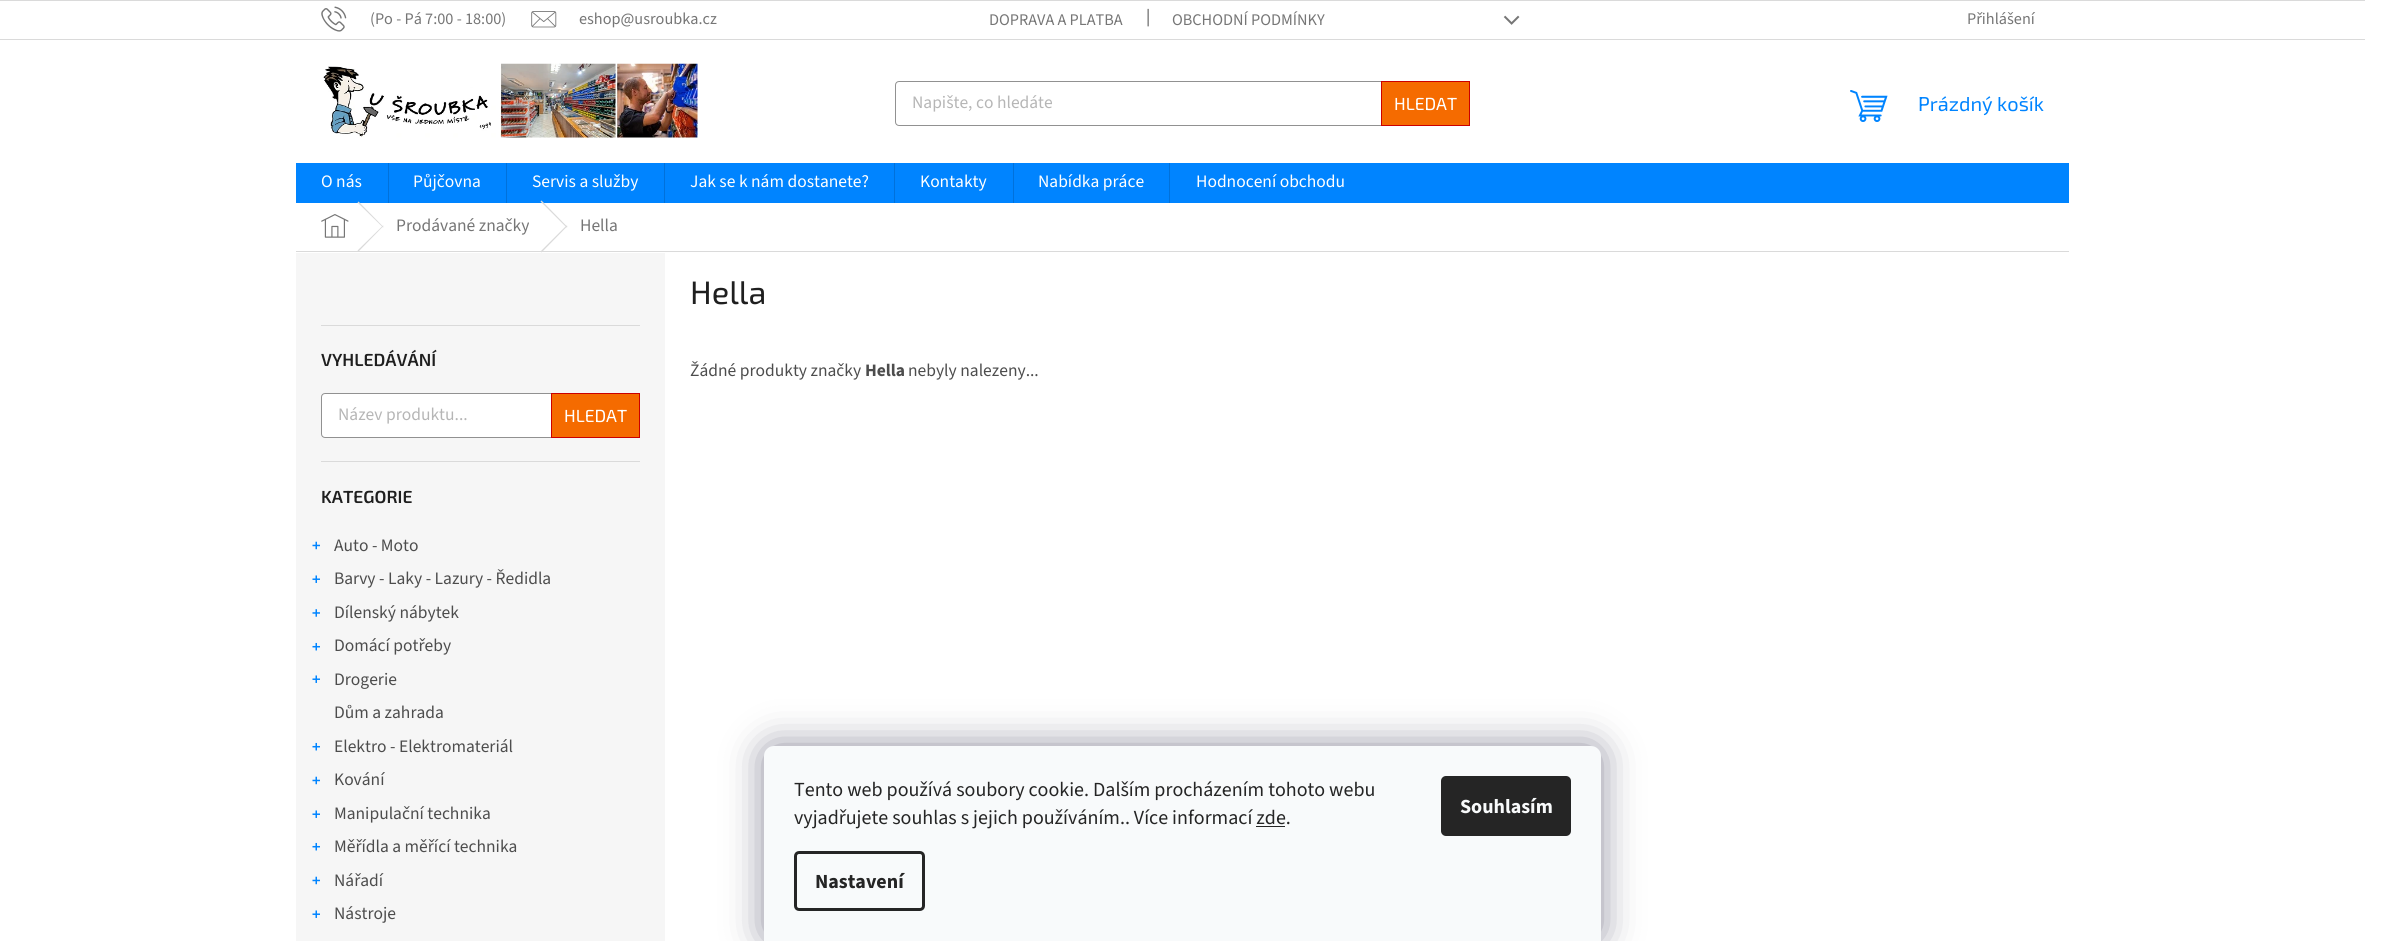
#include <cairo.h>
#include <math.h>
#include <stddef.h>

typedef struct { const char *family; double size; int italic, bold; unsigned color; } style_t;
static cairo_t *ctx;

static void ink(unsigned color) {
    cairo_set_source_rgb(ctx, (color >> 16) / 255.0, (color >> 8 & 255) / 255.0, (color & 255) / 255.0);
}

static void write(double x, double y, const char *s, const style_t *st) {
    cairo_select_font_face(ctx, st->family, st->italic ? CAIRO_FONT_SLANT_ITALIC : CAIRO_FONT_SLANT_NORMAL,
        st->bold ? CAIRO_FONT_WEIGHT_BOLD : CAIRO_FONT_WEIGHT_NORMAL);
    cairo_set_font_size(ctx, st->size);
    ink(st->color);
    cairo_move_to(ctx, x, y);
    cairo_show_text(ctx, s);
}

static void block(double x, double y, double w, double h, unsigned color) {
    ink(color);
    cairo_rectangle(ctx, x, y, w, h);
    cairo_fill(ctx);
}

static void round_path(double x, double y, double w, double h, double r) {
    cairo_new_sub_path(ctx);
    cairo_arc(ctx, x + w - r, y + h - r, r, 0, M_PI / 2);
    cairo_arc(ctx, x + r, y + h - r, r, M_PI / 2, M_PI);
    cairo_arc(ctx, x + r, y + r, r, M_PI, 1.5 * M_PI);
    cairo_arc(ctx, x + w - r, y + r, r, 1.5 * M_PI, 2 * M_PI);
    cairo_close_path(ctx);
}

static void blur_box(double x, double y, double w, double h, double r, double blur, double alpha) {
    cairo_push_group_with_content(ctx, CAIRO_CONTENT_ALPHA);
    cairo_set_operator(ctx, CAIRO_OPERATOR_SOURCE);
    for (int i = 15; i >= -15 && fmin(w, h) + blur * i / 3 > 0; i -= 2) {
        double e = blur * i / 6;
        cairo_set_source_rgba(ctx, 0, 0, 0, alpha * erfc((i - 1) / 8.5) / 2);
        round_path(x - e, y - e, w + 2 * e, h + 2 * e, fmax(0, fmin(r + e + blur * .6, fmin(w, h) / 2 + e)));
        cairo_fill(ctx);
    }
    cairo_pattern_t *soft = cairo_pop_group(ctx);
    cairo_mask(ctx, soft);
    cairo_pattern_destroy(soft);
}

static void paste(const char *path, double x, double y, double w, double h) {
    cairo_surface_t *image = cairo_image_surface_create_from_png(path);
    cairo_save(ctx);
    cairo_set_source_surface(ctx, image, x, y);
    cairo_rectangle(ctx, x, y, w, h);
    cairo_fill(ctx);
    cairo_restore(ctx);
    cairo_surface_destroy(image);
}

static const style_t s1 = {"Source Sans 3", 16.25, 0, 0, 0x767676};
static const style_t s2 = {"Source Sans 3", 17.5, 0, 0, 0x4d4d4d};
static const style_t s3 = {"Source Sans 3", 17.5, 0, 0, 0xb6b6b6};
static const style_t s4 = {"Exo 2", 17.5, 0, 0, 0xffffff};
static const style_t s5 = {"Exo 2", 20, 0, 0, 0x0084ff};
static const style_t s6 = {"Source Sans 3", 17.5, 0, 0, 0xffffff};
static const style_t s7 = {"Source Sans 3", 17.5, 0, 0, 0x767676};
static const style_t s8 = {"Exo 2", 32.5, 0, 0, 0x1f1f1f};
static const style_t s9 = {"Source Sans 3", 17.5, 0, 1, 0x4d4d4d};
static const style_t s10 = {"Exo 2 SemiBold", 17.5, 0, 0, 0x1f1f1f};
static const style_t s11 = {"Source Sans 3", 20, 0, 0, 0x252525};
static const style_t s12 = {"Source Sans 3", 20, 0, 1, 0x252525};
static const style_t s13 = {"Source Sans 3", 20, 0, 1, 0xf8fafb};

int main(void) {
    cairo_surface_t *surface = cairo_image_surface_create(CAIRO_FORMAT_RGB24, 2383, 941);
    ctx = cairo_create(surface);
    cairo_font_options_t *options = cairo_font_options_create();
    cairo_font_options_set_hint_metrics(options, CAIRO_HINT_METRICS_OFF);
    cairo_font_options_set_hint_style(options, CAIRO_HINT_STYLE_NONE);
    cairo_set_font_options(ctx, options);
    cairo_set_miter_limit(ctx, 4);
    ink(0xffffff);
    cairo_paint(ctx);
    block(0, 0, 2365, 1, 0xdadada);
    block(0, 39, 2365, 1, 0xdadada);
    paste("pic1.png", 321, 6, 26, 26);
    write(370, 24, "(Po - Pá 7:00 - 18:00)", &s1);
    paste("pic2.png", 531, 11, 26, 17);
    write(579, 24, "eshop@usroubka.cz", &s1);
    write(989, 25, "DOPRAVA A PLATBA", &s1);
    write(1146, 22, "|", &s2);
    write(1172, 25, "OBCHODNÍ PODMÍNKY", &s1);
    paste("pic3.png", 1503, 15, 17, 10);
    write(1967, 24, "Přihlášení", &s1);
    paste("pic4.png", 323, 63, 375, 75);
    round_path(895.5, 81.5, 574, 44, 3.5);
    ink(0x919191);
    cairo_set_line_width(ctx, 1);
    cairo_stroke(ctx);
    write(912, 108, "Napište, co hledáte", &s3);
    ink(0xf56b00);
    cairo_rectangle(ctx, 1381.5, 81.5, 88, 44);
    cairo_fill_preserve(ctx);
    ink(0xcb0000);
    cairo_stroke(ctx);
    write(1394, 110, "HLEDAT", &s4);
    paste("pic5.png", 1850, 90, 38, 32);
    write(1918, 111, "Prázdný košík", &s5);
    block(296, 163, 1773, 40, 0x0084ff);
    write(321, 187, "O nás", &s6);
    block(388, 163, 1, 40, 0x0071db);
    write(413, 187, "Půjčovna", &s6);
    block(506, 163, 1, 40, 0x0071db);
    write(532, 187, "Servis a služby", &s6);
    block(664, 163, 1, 40, 0x0071db);
    write(690, 187, "Jak se k nám dostanete?", &s6);
    block(894, 163, 1, 40, 0x0071db);
    write(920, 187, "Kontakty", &s6);
    block(1013, 163, 1, 40, 0x0071db);
    write(1038, 187, "Nabídka práce", &s6);
    block(1169, 163, 1, 40, 0x0071db);
    write(1196, 187, "Hodnocení obchodu", &s6);
    block(296, 251, 1773, 1, 0xdadada);
    paste("pic6.png", 321, 214, 28, 24);
    cairo_new_path(ctx);
    cairo_move_to(ctx, 357.5, 202.5);
    cairo_line_to(ctx, 358.5, 201.5);
    cairo_line_to(ctx, 383.5, 227);
    cairo_line_to(ctx, 383, 227.5);
    cairo_close_path(ctx);
    cairo_fill(ctx);
    cairo_new_path(ctx);
    cairo_move_to(ctx, 383, 225.5);
    cairo_line_to(ctx, 383.5, 226);
    cairo_line_to(ctx, 358.5, 251.5);
    cairo_line_to(ctx, 357.5, 250.5);
    cairo_close_path(ctx);
    cairo_fill(ctx);
    write(396, 231, "Prodávané značky", &s7);
    ink(0xdadada);
    cairo_new_path(ctx);
    cairo_move_to(ctx, 540.5, 201.5);
    cairo_line_to(ctx, 541.5, 200.5);
    cairo_line_to(ctx, 567.5, 227);
    cairo_line_to(ctx, 566.5, 227.5);
    cairo_close_path(ctx);
    cairo_fill(ctx);
    cairo_new_path(ctx);
    cairo_move_to(ctx, 566.5, 225.5);
    cairo_line_to(ctx, 567.5, 226);
    cairo_line_to(ctx, 541.5, 252.5);
    cairo_line_to(ctx, 540.5, 251.5);
    cairo_close_path(ctx);
    cairo_fill(ctx);
    write(580, 231, "Hella", &s7);
    write(690, 304, "Hella", &s8);
    write(690, 376, "Žádné produkty značky", &s2);
    write(865, 376, "Hella", &s9);
    write(908, 376, "nebyly nalezeny...", &s2);
    block(296, 253, 369, 688, 0xf6f6f6);
    block(321, 325, 319, 1, 0xdadada);
    block(321, 461, 319, 1, 0xdadada);
    write(321, 366, "VYHLEDÁVÁNÍ", &s10);
    ink(0xffffff);
    round_path(321.5, 393.5, 318, 44, 3.5);
    cairo_fill_preserve(ctx);
    ink(0x919191);
    cairo_stroke(ctx);
    write(338, 420, "Název produktu...", &s3);
    ink(0xf56b00);
    cairo_rectangle(ctx, 551.5, 393.5, 88, 44);
    cairo_fill_preserve(ctx);
    ink(0xcb0000);
    cairo_stroke(ctx);
    write(564, 422, "HLEDAT", &s4);
    write(321, 503, "KATEGORIE", &s10);
    paste("pic7.png", 312, 541, 8, 9);
    write(334, 551, "Auto - Moto", &s2);
    paste("pic8.png", 312, 575, 8, 8);
    write(334, 584, "Barvy - Laky - Lazury - Ředidla", &s2);
    paste("pic9.png", 312, 609, 8, 8);
    write(334, 618, "Dílenský nábytek", &s2);
    paste("pic10.png", 312, 642, 8, 9);
    write(334, 651, "Domácí potřeby", &s2);
    paste("pic8.png", 312, 675, 8, 8);
    write(334, 685, "Drogerie", &s2);
    write(334, 718, "Dům a zahrada", &s2);
    paste("pic10.png", 312, 742, 8, 9);
    write(334, 752, "Elektro - Elektromateriál", &s2);
    paste("pic7.png", 312, 776, 8, 9);
    write(334, 785, "Kování", &s2);
    paste("pic8.png", 312, 810, 8, 8);
    write(334, 819, "Manipulační technika", &s2);
    paste("pic10.png", 312, 842, 8, 9);
    write(334, 852, "Měřídla a měřící technika", &s2);
    paste("pic7.png", 312, 876, 8, 9);
    write(334, 886, "Nářadí", &s2);
    paste("pic8.png", 312, 910, 8, 8);
    write(334, 919, "Nástroje", &s2);
    ink(0x1b1939);
    blur_box(764, 746, 837, 195, 10, 19, 0.5);
    ink(0xf8fafb);
    cairo_new_path(ctx);
    cairo_move_to(ctx, 774, 746);
    cairo_line_to(ctx, 1591, 746);
    cairo_curve_to(ctx, 1596.5, 746, 1601, 750.5, 1601, 756);
    cairo_line_to(ctx, 1601, 941);
    cairo_line_to(ctx, 764, 941);
    cairo_line_to(ctx, 764, 756);
    cairo_curve_to(ctx, 764, 750.5, 768.5, 746, 774, 746);
    cairo_close_path(ctx);
    cairo_fill(ctx);
    write(794, 796, "Tento web používá soubory cookie. Dalším procházením tohoto webu", &s11);
    write(794, 824, "vyjadřujete souhlas s jejich používáním.. Více informací zde.", &s11);
    block(1256, 826, 29, 1, 0x252525);
    round_path(795.5, 852.5, 128, 57, 3.5);
    cairo_set_line_width(ctx, 3);
    cairo_stroke(ctx);
    write(815, 888, "Nastavení", &s12);
    round_path(1441, 776, 130, 60, 5);
    cairo_fill(ctx);
    write(1460, 813, "Souhlasím", &s13);
    cairo_surface_write_to_png(surface, "screenshot.png");
    cairo_font_options_destroy(options);
    cairo_destroy(ctx);
    cairo_surface_destroy(surface);
    return 0;
}
